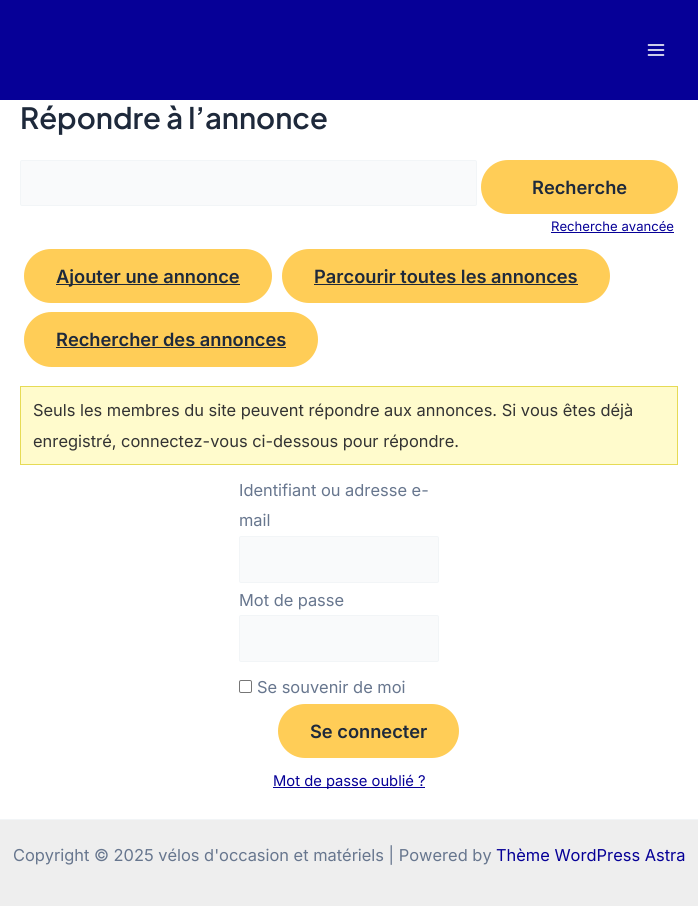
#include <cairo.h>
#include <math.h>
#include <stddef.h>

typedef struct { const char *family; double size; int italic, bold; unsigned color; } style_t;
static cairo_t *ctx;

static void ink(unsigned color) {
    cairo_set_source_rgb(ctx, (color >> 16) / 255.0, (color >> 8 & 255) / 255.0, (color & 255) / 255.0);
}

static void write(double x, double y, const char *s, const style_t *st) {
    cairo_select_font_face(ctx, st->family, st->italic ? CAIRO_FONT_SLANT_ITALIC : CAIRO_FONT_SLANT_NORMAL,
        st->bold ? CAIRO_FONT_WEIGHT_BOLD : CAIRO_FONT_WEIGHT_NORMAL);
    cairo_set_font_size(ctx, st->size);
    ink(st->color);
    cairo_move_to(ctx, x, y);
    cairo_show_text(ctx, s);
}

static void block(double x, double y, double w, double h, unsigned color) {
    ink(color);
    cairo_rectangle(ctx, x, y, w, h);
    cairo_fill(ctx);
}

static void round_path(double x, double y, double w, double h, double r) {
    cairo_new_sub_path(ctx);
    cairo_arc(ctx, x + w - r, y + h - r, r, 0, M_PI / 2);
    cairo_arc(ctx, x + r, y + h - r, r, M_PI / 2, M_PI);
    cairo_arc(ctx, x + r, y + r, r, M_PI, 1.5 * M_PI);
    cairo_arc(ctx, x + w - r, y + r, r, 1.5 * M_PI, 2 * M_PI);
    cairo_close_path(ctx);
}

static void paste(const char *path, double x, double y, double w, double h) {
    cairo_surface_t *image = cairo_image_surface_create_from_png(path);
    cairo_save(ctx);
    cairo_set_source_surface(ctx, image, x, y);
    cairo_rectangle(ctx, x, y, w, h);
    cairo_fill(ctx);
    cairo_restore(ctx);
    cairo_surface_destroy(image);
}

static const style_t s1 = {"Plus Jakarta Sans SemiBold", 29.25, 0, 0, 0x1e293b};
static const style_t s2 = {"Inter SemiBold", 18.25, 0, 0, 0x1e293b};
static const style_t s3 = {"Inter", 13.1, 0, 0, 0x060097};
static const style_t s4 = {"Inter", 16.4, 0, 0, 0x333333};
static const style_t s5 = {"Inter", 16.4, 0, 0, 0x67768e};
static const style_t s6 = {"Inter", 14.75, 0, 0, 0x060097};
static const style_t s7 = {"Inter", 16.4, 0, 0, 0x060097};

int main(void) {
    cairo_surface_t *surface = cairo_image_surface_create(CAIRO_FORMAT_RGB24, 698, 906);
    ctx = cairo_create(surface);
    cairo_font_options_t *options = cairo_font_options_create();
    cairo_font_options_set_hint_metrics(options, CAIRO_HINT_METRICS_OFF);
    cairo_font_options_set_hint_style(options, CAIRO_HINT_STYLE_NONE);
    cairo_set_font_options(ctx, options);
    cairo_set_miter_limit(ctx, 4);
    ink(0xffffff);
    cairo_paint(ctx);
    block(0, 0, 698, 100, 0x060097);
    paste("pic1.png", 647, 44, 18, 12);
    write(20, 129, "Répondre à l’annonce", &s1);
    ink(0xf9fafb);
    round_path(20.5, 160.5, 456, 45, 1.5);
    cairo_fill_preserve(ctx);
    ink(0xf2f5f7);
    cairo_set_line_width(ctx, 1);
    cairo_stroke(ctx);
    ink(0xffcd57);
    round_path(481, 160, 197, 54, 27);
    cairo_fill(ctx);
    write(532, 194, "Recherche", &s2);
    write(551, 231, "Recherche avancée", &s3);
    block(551, 232, 123, 1, 0x060097);
    ink(0xffcd57);
    round_path(24, 249, 248, 54, 27);
    cairo_fill(ctx);
    block(56, 284, 184, 1, 0x1e293b);
    write(56, 283, "Ajouter une annonce", &s2);
    ink(0xffcd57);
    round_path(282, 249, 328, 54, 27);
    cairo_fill(ctx);
    write(314, 283, "Parcourir toutes les annonces", &s2);
    block(314, 284, 264, 1, 0x1e293b);
    ink(0xffcd57);
    round_path(24, 312, 294, 55, 27.5);
    cairo_fill(ctx);
    write(56, 346, "Rechercher des annonces", &s2);
    block(56, 347, 230, 1, 0x1e293b);
    ink(0xfffbcc);
    cairo_rectangle(ctx, 20.5, 386.5, 657, 78);
    cairo_fill_preserve(ctx);
    ink(0xe6db55);
    cairo_stroke(ctx);
    write(33, 416, "Seuls les membres du site peuvent répondre aux annonces. Si vous êtes déjà", &s4);
    write(33, 447, "enregistré, connectez-vous ci-dessous pour répondre.", &s4);
    write(239, 496, "Identifiant ou adresse e-", &s5);
    write(239, 526, "mail", &s5);
    ink(0xf9fafb);
    round_path(239.5, 536.5, 199, 46, 1.5);
    cairo_fill_preserve(ctx);
    ink(0xf2f5f7);
    cairo_stroke(ctx);
    write(239, 606, "Mot de passe", &s5);
    ink(0xf9fafb);
    round_path(239.5, 615.5, 199, 46, 1.5);
    cairo_fill_preserve(ctx);
    ink(0xf2f5f7);
    cairo_stroke(ctx);
    round_path(239.5, 680.5, 12, 12, 1.5);
    ink(0x767676);
    cairo_stroke(ctx);
    write(257, 693, "Se souvenir de moi", &s5);
    ink(0xffcd57);
    round_path(278, 704, 181, 54, 27);
    cairo_fill(ctx);
    write(310, 738, "Se connecter", &s2);
    block(273, 787, 152, 1, 0x060097);
    write(273, 786, "Mot de passe oublié ?", &s6);
    block(0, 820, 698, 86, 0xeeeeee);
    block(0, 819, 698, 1, 0xf2f5f7);
    write(13, 861, "Copyright © 2025 vélos d'occasion et matériels | Powered by", &s5);
    write(496, 861, "Thème WordPress Astra", &s7);
    cairo_surface_write_to_png(surface, "screenshot.png");
    cairo_font_options_destroy(options);
    cairo_destroy(ctx);
    cairo_surface_destroy(surface);
    return 0;
}
